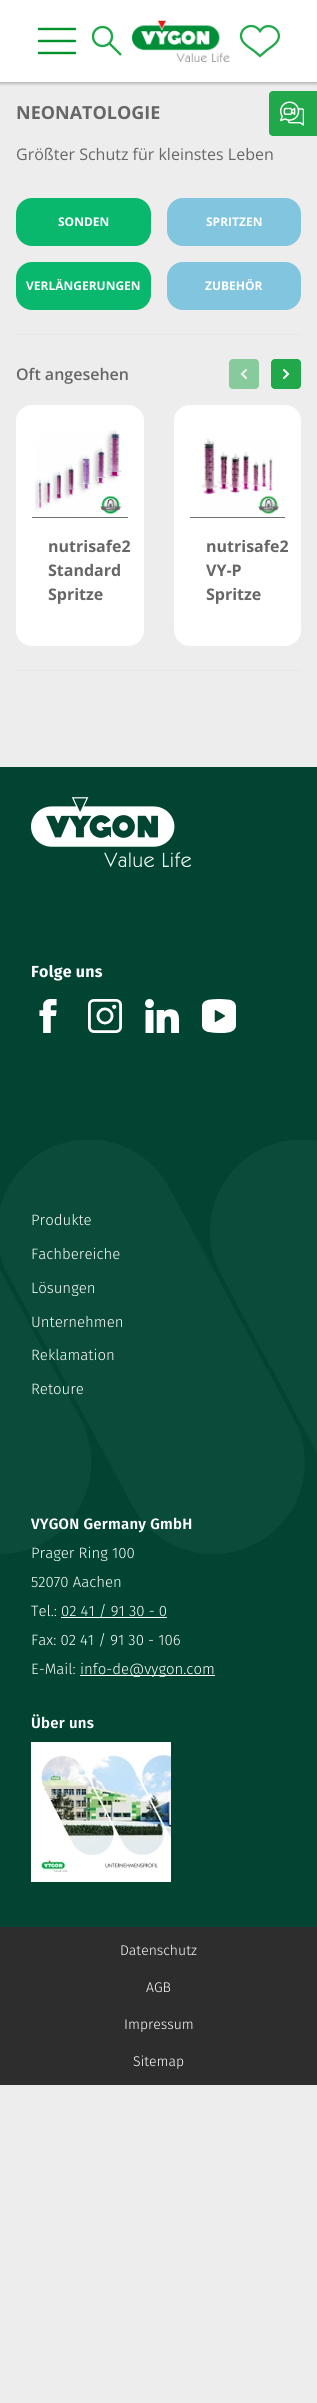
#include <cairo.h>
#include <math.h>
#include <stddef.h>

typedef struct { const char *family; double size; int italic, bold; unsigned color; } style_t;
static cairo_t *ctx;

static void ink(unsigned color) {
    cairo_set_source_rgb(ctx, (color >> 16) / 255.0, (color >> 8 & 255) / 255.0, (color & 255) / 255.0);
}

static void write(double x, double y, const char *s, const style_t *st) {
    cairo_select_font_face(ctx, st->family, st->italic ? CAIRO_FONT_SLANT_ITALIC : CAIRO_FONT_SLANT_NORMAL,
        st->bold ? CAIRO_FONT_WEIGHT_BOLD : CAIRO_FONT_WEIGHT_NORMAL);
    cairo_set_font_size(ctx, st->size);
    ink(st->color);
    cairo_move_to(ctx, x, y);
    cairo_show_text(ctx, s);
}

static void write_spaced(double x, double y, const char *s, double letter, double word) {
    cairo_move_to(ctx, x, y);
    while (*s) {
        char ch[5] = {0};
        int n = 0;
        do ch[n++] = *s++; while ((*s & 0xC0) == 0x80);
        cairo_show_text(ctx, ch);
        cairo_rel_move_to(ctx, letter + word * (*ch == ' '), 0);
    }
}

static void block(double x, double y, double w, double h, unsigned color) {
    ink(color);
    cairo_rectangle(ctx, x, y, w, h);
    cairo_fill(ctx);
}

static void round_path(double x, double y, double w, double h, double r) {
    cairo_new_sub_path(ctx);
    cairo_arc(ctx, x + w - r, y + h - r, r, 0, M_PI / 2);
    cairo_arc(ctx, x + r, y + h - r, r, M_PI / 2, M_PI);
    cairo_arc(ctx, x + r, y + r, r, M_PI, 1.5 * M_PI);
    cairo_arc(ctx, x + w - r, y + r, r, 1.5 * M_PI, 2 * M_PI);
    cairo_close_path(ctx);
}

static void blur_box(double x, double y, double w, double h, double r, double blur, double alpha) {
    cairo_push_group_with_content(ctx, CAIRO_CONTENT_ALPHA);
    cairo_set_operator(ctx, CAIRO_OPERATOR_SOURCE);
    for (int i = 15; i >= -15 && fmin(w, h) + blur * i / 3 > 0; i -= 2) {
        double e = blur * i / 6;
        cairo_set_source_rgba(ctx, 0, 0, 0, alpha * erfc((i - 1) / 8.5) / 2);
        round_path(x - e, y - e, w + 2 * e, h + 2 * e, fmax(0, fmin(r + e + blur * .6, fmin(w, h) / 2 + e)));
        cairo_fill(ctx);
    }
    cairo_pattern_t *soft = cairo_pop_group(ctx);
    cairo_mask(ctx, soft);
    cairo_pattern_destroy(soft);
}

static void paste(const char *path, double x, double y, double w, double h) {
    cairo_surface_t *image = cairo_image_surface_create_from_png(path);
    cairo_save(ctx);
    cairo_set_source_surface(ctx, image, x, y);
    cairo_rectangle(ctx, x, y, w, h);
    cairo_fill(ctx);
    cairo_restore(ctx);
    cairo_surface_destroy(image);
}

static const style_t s1 = {"Open Sans", 18, 0, 1, 0x666666};
static const style_t s2 = {"Open Sans", 16, 0, 0, 0x666666};
static const style_t s3 = {"Open Sans", 12, 0, 1, 0xffffff};
static const style_t s4 = {"Open Sans SemiBold", 16, 0, 0, 0x666666};
static const style_t s5 = {"Open Sans", 16, 0, 1, 0x666666};
static const style_t s6 = {"Fira Sans Light", 15, 0, 0, 0xffffff};
static const style_t s7 = {"Fira Sans Light", 14, 0, 0, 0xffffff};

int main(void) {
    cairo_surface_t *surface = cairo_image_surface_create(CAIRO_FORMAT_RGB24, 317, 2403);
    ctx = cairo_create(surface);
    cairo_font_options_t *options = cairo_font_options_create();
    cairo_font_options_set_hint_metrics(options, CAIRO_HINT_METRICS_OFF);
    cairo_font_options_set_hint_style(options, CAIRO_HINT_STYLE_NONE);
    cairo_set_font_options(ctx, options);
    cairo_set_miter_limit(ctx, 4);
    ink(0xededed);
    cairo_paint(ctx);
    block(0, 0, 317, 82, 0xffffff);
    cairo_save(ctx);
    cairo_rectangle(ctx, 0, 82, 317, 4);
    cairo_clip(ctx);
    ink(0x000000);
    blur_box(0, 0, 317, 82, 0, 2.5, 0.5);
    cairo_restore(ctx);
    cairo_new_path(ctx);
    cairo_move_to(ctx, 39, 29);
    cairo_line_to(ctx, 75, 29);
    cairo_move_to(ctx, 39, 41);
    cairo_line_to(ctx, 75, 41);
    cairo_move_to(ctx, 39, 53);
    cairo_line_to(ctx, 75, 53);
    ink(0x00912a);
    cairo_set_line_width(ctx, 2.4);
    cairo_set_line_cap(ctx, CAIRO_LINE_CAP_ROUND);
    cairo_stroke(ctx);
    cairo_arc(ctx, 102.5, 36.5, 9.5, 0, 2 * M_PI);
    ink(0x21a84a);
    cairo_set_line_cap(ctx, CAIRO_LINE_CAP_BUTT);
    cairo_stroke(ctx);
    cairo_new_path(ctx);
    cairo_move_to(ctx, 109, 43);
    cairo_line_to(ctx, 121, 55);
    cairo_stroke(ctx);
    paste("pic1.png", 132, 20, 98, 42);
    cairo_new_path(ctx);
    cairo_move_to(ctx, 260, 31);
    cairo_curve_to(ctx, 267.5, 19.5, 284.5, 30.5, 277, 41.5);
    cairo_curve_to(ctx, 274.5, 45, 270.5, 47.5, 267, 50);
    cairo_line_to(ctx, 260, 56);
    cairo_line_to(ctx, 253.5, 50.5);
    cairo_curve_to(ctx, 250, 48, 245, 45, 242.5, 41);
    cairo_curve_to(ctx, 236, 30, 252, 19.5, 260, 31);
    cairo_close_path(ctx);
    cairo_set_line_width(ctx, 2.3);
    cairo_stroke(ctx);
    write(16, 119, "NEONATOLOGIE", &s1);
    write(16, 160, "Größter Schutz für kleinstes Leben", &s2);
    ink(0x21a84a);
    round_path(269, 91, 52, 45, 4);
    cairo_fill(ctx);
    paste("pic2.png", 280, 101, 24, 25);
    ink(0x09b86d);
    round_path(16, 198, 135, 48, 16);
    cairo_fill(ctx);
    write(58, 226, "SONDEN", &s3);
    ink(0x81c5de);
    round_path(167, 198, 134, 48, 16);
    cairo_fill(ctx);
    write(206, 226, "SPRITZEN", &s3);
    ink(0x09b86d);
    round_path(16, 262, 135, 48, 16);
    cairo_fill(ctx);
    write(26, 290, "VERLÄNGERUNGEN", &s3);
    ink(0x81c5de);
    round_path(167, 262, 134, 48, 16);
    cairo_fill(ctx);
    write(205, 290, "ZUBEHÖR", &s3);
    block(16, 334, 285, 1, 0xe5e7eb);
    write(16, 380, "Oft angesehen", &s4);
    ink(0x87cb9c);
    round_path(229, 359, 30, 30, 4);
    cairo_fill(ctx);
    cairo_new_path(ctx);
    cairo_move_to(ctx, 246, 370);
    cairo_line_to(ctx, 242, 374);
    cairo_line_to(ctx, 246, 378);
    ink(0xf6f6f6);
    cairo_set_line_width(ctx, 2);
    cairo_set_line_cap(ctx, CAIRO_LINE_CAP_ROUND);
    cairo_stroke(ctx);
    ink(0x21a84a);
    round_path(271, 359, 30, 30, 4);
    cairo_fill(ctx);
    cairo_new_path(ctx);
    cairo_move_to(ctx, 284, 378);
    cairo_line_to(ctx, 288, 374);
    cairo_line_to(ctx, 284, 370);
    ink(0xffffff);
    cairo_stroke(ctx);
    round_path(16, 405, 128, 241, 16);
    cairo_fill(ctx);
    block(32, 517, 96, 1, 0x707070);
    paste("pic3.png", 35, 430, 87, 84);
    write(48, 552, "nutrisafe2", &s5);
    write(48, 576, "Standard", &s5);
    write(48, 600, "Spritze", &s5);
    ink(0xffffff);
    round_path(174, 405, 127, 241, 16);
    cairo_fill(ctx);
    block(190, 517, 95, 1, 0x707070);
    paste("pic4.png", 201, 438, 79, 76);
    write(206, 552, "nutrisafe2", &s5);
    write(206, 576, "VY-P", &s5);
    write(206, 600, "Spritze", &s5);
    block(16, 670, 285, 1, 0xe5e7eb);
    block(0, 767, 317, 1160, 0x004431);
    paste("pic5.png", 31, 797, 160, 70);
    cairo_select_font_face(ctx, "Fira Sans", CAIRO_FONT_SLANT_NORMAL, CAIRO_FONT_WEIGHT_BOLD);
    ink(0xffffff);
    write_spaced(31, 977, "Folge uns", 0.25, 0);
    paste("pic6.png", 39, 999, 18, 34);
    paste("pic7.png", 88, 999, 34, 34);
    paste("pic8.png", 145, 999, 34, 34);
    paste("pic9.png", 202, 999, 34, 34);
    paste("pic11.png", 0, 1140, 317, 414);
    write(31, 1225, "Produkte", &s6);
    write(31, 1259, "Fachbereiche", &s6);
    write(31, 1293, "Lösungen", &s6);
    write(31, 1327, "Unternehmen", &s6);
    write(31, 1360, "Reklamation", &s6);
    write(31, 1394, "Retoure", &s6);
    cairo_select_font_face(ctx, "Fira Sans SemiBold", CAIRO_FONT_SLANT_NORMAL, CAIRO_FONT_WEIGHT_NORMAL);
    write_spaced(31, 1529, "VYGON Germany GmbH", 0.25, 0);
    write(31, 1558, "Prager Ring 100", &s6);
    write(31, 1587, "52070 Aachen", &s6);
    write(31, 1616, "Tel.:", &s6);
    block(61, 1617, 106, 1, 0xffffff);
    write(61, 1616, "02 41 / 91 30 - 0", &s6);
    write(31, 1645, "Fax: 02 41 / 91 30 - 106", &s6);
    write(31, 1674, "E-Mail:", &s6);
    block(80, 1675, 135, 1, 0xffffff);
    write(80, 1674, "info-de@vygon.com", &s6);
    cairo_select_font_face(ctx, "Fira Sans SemiBold", CAIRO_FONT_SLANT_NORMAL, CAIRO_FONT_WEIGHT_NORMAL);
    write_spaced(31, 1728, "Über uns", 0.25, 0);
    paste("pic10.png", 31, 1742, 140, 140);
    block(0, 1927, 317, 158, 0x2d2d2d);
    write(120, 1955, "Datenschutz", &s7);
    write(146, 1992, "AGB", &s7);
    write(124, 2029, "Impressum", &s7);
    write(133, 2066, "Sitemap", &s7);
    cairo_surface_write_to_png(surface, "screenshot.png");
    cairo_font_options_destroy(options);
    cairo_destroy(ctx);
    cairo_surface_destroy(surface);
    return 0;
}
